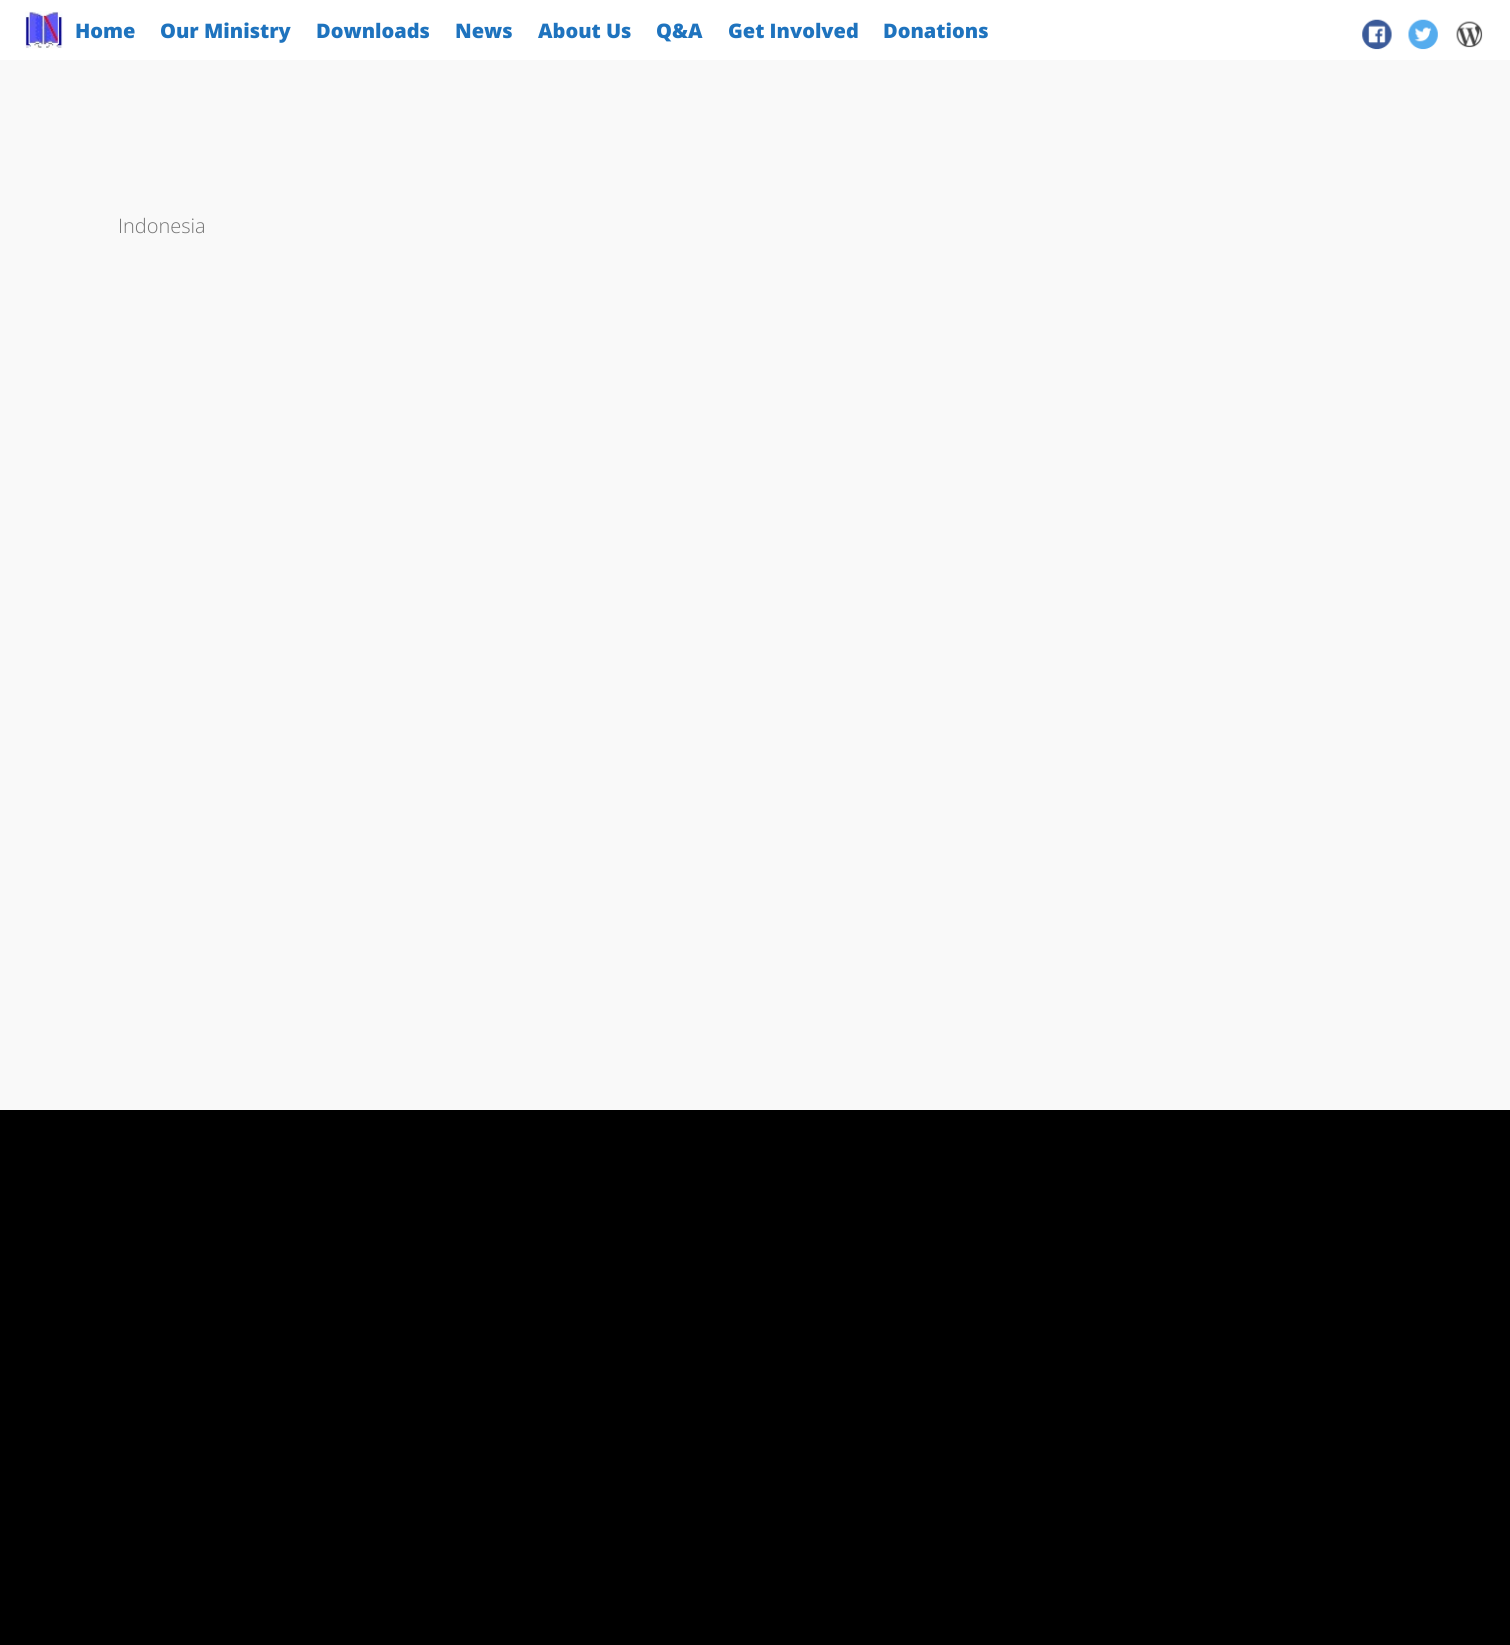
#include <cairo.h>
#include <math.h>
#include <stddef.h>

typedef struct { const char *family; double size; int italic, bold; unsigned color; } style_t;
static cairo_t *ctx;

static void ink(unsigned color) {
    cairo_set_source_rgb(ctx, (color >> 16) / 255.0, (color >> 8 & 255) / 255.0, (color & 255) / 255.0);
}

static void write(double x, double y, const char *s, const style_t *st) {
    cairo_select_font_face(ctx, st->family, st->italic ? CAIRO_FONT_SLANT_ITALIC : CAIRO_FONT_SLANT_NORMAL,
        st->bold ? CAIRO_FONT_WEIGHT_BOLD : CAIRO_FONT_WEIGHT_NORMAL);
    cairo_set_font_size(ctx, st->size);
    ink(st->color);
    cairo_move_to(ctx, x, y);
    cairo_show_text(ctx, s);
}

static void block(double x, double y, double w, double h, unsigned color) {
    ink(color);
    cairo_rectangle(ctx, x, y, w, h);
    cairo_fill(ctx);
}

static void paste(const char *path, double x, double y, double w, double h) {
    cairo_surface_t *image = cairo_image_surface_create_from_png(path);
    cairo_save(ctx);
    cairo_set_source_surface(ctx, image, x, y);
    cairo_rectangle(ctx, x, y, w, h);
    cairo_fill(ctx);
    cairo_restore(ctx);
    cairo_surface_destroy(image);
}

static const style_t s1 = {"Open Sans ExtraBold", 20, 0, 0, 0x1e73be};
static const style_t s2 = {"Open Sans Light", 20, 0, 0, 0x757575};

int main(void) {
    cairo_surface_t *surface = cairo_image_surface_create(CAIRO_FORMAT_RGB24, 1510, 1645);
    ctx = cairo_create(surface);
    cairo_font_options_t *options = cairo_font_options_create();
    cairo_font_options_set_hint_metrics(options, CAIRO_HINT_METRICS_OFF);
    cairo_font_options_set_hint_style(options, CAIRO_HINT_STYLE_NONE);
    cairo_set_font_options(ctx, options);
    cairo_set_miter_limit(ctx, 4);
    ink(0xf9f9f9);
    cairo_paint(ctx);
    block(0, 0, 1510, 60, 0xffffff);
    paste("pic1.png", 25, 11, 38, 38);
    write(75, 38, "Home", &s1);
    write(160, 38, "Our Ministry", &s1);
    write(316, 38, "Downloads", &s1);
    write(455, 38, "News", &s1);
    write(538, 38, "About Us", &s1);
    write(656, 38, "Q&A", &s1);
    write(728, 38, "Get Involved", &s1);
    write(883, 38, "Donations", &s1);
    paste("pic2.png", 1362, 19, 30, 31);
    paste("pic3.png", 1408, 19, 30, 31);
    paste("pic4.png", 1456, 21, 27, 27);
    write(118, 233, "Indonesia", &s2);
    block(0, 1110, 1510, 535, 0x000000);
    cairo_surface_write_to_png(surface, "screenshot.png");
    cairo_font_options_destroy(options);
    cairo_destroy(ctx);
    cairo_surface_destroy(surface);
    return 0;
}
